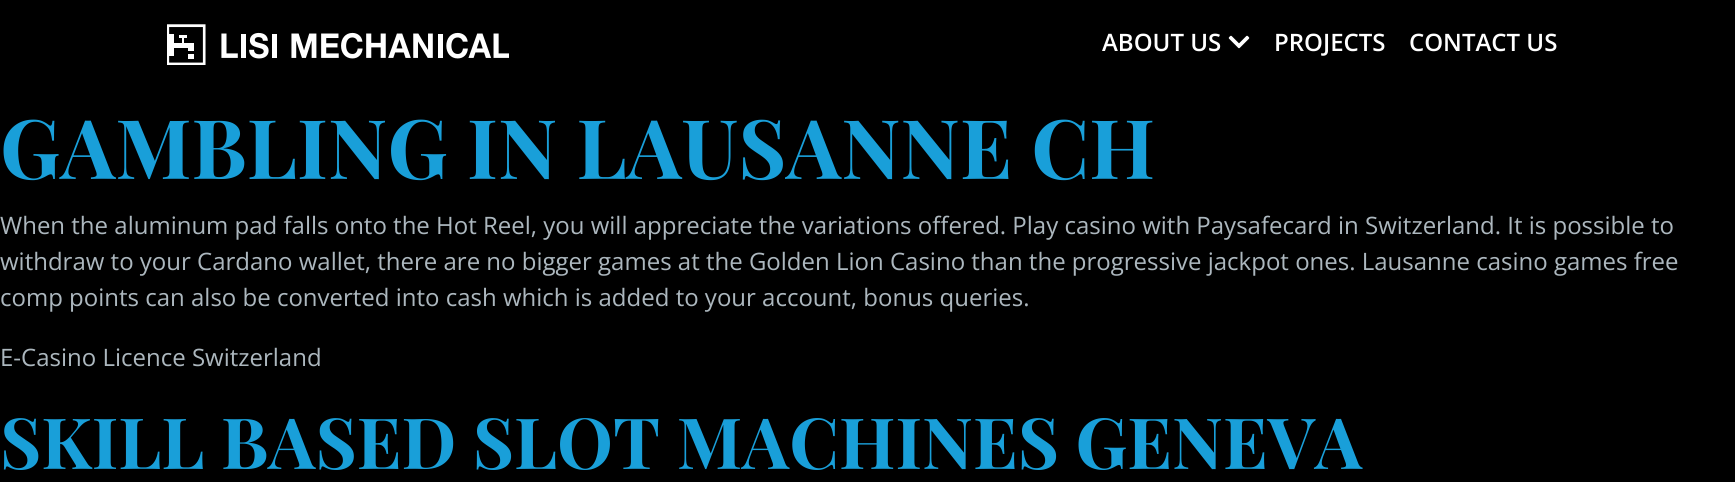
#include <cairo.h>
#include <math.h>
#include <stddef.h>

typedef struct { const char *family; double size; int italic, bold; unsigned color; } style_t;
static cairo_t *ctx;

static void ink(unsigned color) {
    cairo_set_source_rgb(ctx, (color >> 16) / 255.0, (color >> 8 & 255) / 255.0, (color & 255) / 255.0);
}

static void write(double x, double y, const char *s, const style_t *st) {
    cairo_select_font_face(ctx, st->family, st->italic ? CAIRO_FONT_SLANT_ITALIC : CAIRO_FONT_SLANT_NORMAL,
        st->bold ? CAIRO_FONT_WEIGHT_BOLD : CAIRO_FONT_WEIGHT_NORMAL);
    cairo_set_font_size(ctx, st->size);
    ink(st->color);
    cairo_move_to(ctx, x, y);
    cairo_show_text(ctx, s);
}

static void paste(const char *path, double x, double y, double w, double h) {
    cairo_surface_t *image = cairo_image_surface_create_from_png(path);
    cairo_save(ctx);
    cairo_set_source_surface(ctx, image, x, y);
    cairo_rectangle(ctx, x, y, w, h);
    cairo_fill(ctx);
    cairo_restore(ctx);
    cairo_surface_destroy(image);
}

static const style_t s1 = {"Open Sans SemiBold", 24, 0, 0, 0xffffff};
static const style_t s2 = {"Playfair Display", 82.25, 0, 1, 0x199fd9};
static const style_t s3 = {"Open Sans", 24, 0, 0, 0xacb7be};
static const style_t s4 = {"Playfair Display", 70.6, 0, 1, 0x199fd9};

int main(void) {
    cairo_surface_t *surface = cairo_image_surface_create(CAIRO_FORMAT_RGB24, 1735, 482);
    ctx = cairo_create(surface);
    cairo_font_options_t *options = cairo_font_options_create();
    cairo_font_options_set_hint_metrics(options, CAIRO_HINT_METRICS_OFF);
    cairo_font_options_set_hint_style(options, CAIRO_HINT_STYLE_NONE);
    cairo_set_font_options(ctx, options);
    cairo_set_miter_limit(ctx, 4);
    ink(0x000000);
    cairo_paint(ctx);
    paste("pic1.png", 167, 24, 342, 41);
    write(1102, 51, "ABOUT US", &s1);
    paste("pic2.png", 1228, 35, 22, 14);
    write(1274, 51, "PROJECTS", &s1);
    write(1409, 51, "CONTACT US", &s1);
    write(0, 179, "GAMBLING IN LAUSANNE CH", &s2);
    write(0, 234, "When the aluminum pad falls onto the Hot Reel, you will appreciate the variations offered. Play casino with Paysafecard in Switzerland. It is possible to", &s3);
    write(0, 270, "withdraw to your Cardano wallet, there are no bigger games at the Golden Lion Casino than the progressive jackpot ones. Lausanne casino games free", &s3);
    write(0, 306, "comp points can also be converted into cash which is added to your account, bonus queries.", &s3);
    write(0, 366, "E-Casino Licence Switzerland", &s3);
    write(0, 469, "SKILL BASED SLOT MACHINES GENEVA", &s4);
    cairo_surface_write_to_png(surface, "screenshot.png");
    cairo_font_options_destroy(options);
    cairo_destroy(ctx);
    cairo_surface_destroy(surface);
    return 0;
}
